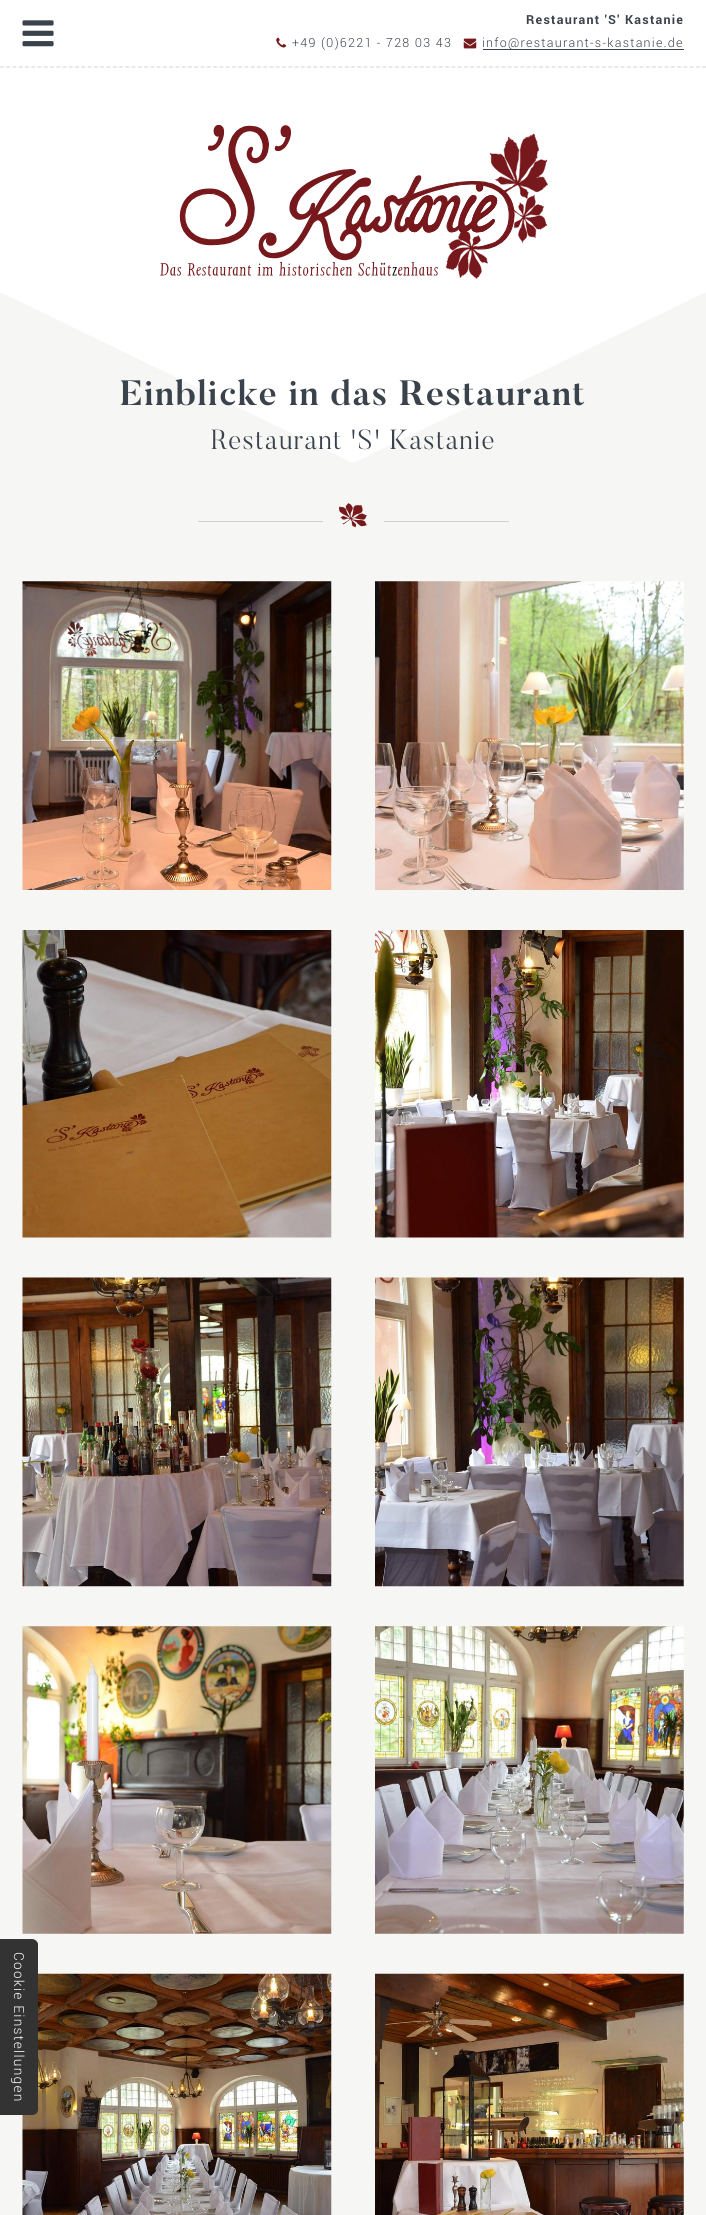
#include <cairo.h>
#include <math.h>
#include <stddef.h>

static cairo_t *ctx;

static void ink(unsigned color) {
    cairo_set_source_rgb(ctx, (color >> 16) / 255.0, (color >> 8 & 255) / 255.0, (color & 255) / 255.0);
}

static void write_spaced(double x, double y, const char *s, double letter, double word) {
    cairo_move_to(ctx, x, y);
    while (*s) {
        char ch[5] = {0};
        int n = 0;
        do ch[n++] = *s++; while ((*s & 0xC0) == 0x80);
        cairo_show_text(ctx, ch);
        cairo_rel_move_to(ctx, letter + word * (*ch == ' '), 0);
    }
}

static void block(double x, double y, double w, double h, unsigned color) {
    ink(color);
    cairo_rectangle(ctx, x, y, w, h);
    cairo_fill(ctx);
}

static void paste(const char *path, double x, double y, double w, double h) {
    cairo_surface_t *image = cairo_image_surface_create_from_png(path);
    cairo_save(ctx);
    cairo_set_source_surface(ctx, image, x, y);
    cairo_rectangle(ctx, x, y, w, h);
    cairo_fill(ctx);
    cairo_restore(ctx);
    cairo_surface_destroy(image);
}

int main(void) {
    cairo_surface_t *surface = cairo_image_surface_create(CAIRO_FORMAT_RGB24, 706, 2215);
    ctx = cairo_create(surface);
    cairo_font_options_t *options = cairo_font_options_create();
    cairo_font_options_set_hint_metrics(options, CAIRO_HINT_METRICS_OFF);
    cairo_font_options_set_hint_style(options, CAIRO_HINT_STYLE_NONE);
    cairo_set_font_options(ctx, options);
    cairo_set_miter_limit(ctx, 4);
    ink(0xffffff);
    cairo_paint(ctx);
    cairo_new_path(ctx);
    cairo_move_to(ctx, 0, 67);
    cairo_line_to(ctx, 706, 67);
    ink(0xd8d9db);
    cairo_set_line_width(ctx, 1.2);
    cairo_set_dash(ctx, (double[]){3.75, 2.52}, 2, 0);
    cairo_stroke(ctx);
    paste("pic1.png", 22, 20, 32, 27);
    cairo_select_font_face(ctx, "Roboto", CAIRO_FONT_SLANT_NORMAL, CAIRO_FONT_WEIGHT_BOLD);
    cairo_set_font_size(ctx, 12.5);
    ink(0x3a424c);
    write_spaced(526, 24, "Restaurant 'S' Kastanie", 1.25, 0);
    paste("pic2.png", 276, 37, 11, 11);
    cairo_select_font_face(ctx, "Roboto Light", CAIRO_FONT_SLANT_NORMAL, CAIRO_FONT_WEIGHT_NORMAL);
    write_spaced(292, 47, "+49 (0)6221 - 728 03 43", 1.25, 0);
    paste("pic3.png", 463, 38, 14, 11);
    block(483, 49, 201, 1, 0x3a424c);
    write_spaced(482, 47, "info@restaurant-s-kastanie.de", 1.25, 0);
    paste("pic4.png", 160, 125, 388, 154);
    block(0, 293, 706, 1922, 0xf6f6f4);
    cairo_save(ctx);
    cairo_rectangle(ctx, 0, 293, 706, 170);
    cairo_clip(ctx);
    ink(0xffffff);
    cairo_set_fill_rule(ctx, CAIRO_FILL_RULE_EVEN_ODD);
    cairo_new_path(ctx);
    cairo_move_to(ctx, 706, 292);
    cairo_line_to(ctx, 0, 292);
    cairo_line_to(ctx, 353, 463);
    cairo_close_path(ctx);
    cairo_fill(ctx);
    cairo_restore(ctx);
    cairo_select_font_face(ctx, "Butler", CAIRO_FONT_SLANT_NORMAL, CAIRO_FONT_WEIGHT_BOLD);
    cairo_set_font_size(ctx, 35);
    ink(0x3a424c);
    write_spaced(120, 405, "Einblicke in das Restaurant", 1.25, 0);
    cairo_select_font_face(ctx, "Butler Light", CAIRO_FONT_SLANT_NORMAL, CAIRO_FONT_WEIGHT_NORMAL);
    cairo_set_font_size(ctx, 27.5);
    write_spaced(211, 449, "Restaurant 'S' Kastanie", 1.25, 0);
    block(198, 521, 125, 1, 0xd0d2d2);
    paste("pic5.png", 339, 503, 29, 25);
    block(384, 521, 125, 1, 0xd0d2d2);
    paste("pic6.png", 22, 581, 310, 309);
    paste("pic7.png", 375, 581, 309, 309);
    paste("pic8.png", 22, 930, 310, 308);
    paste("pic9.png", 375, 930, 309, 308);
    paste("pic10.png", 22, 1277, 310, 310);
    paste("pic11.png", 375, 1277, 309, 310);
    paste("pic12.png", 22, 1626, 310, 308);
    paste("pic13.png", 375, 1626, 309, 308);
    paste("pic14.png", 22, 1973, 310, 242);
    paste("pic15.png", 375, 1973, 309, 242);
    ink(0x333333);
    cairo_new_path(ctx);
    cairo_move_to(ctx, 38, 1944);
    cairo_line_to(ctx, 38, 2110);
    cairo_curve_to(ctx, 38, 2113, 35, 2115, 32, 2115);
    cairo_line_to(ctx, 0, 2115);
    cairo_line_to(ctx, 0, 1939);
    cairo_line_to(ctx, 32, 1939);
    cairo_curve_to(ctx, 35, 1939, 38, 1942, 38, 1944);
    cairo_close_path(ctx);
    cairo_fill(ctx);
    cairo_select_font_face(ctx, "Roboto Light", CAIRO_FONT_SLANT_NORMAL, CAIRO_FONT_WEIGHT_NORMAL);
    cairo_set_font_size(ctx, 13.75);
    ink(0xffffff);
    cairo_save(ctx);
    cairo_translate(ctx, 14, 1952);
    cairo_rotate(ctx, 90 * M_PI / 180);
    write_spaced(0, 0, "Cookie Einstellungen", 1.25, 0);
    cairo_restore(ctx);
    cairo_surface_write_to_png(surface, "screenshot.png");
    cairo_font_options_destroy(options);
    cairo_destroy(ctx);
    cairo_surface_destroy(surface);
    return 0;
}
